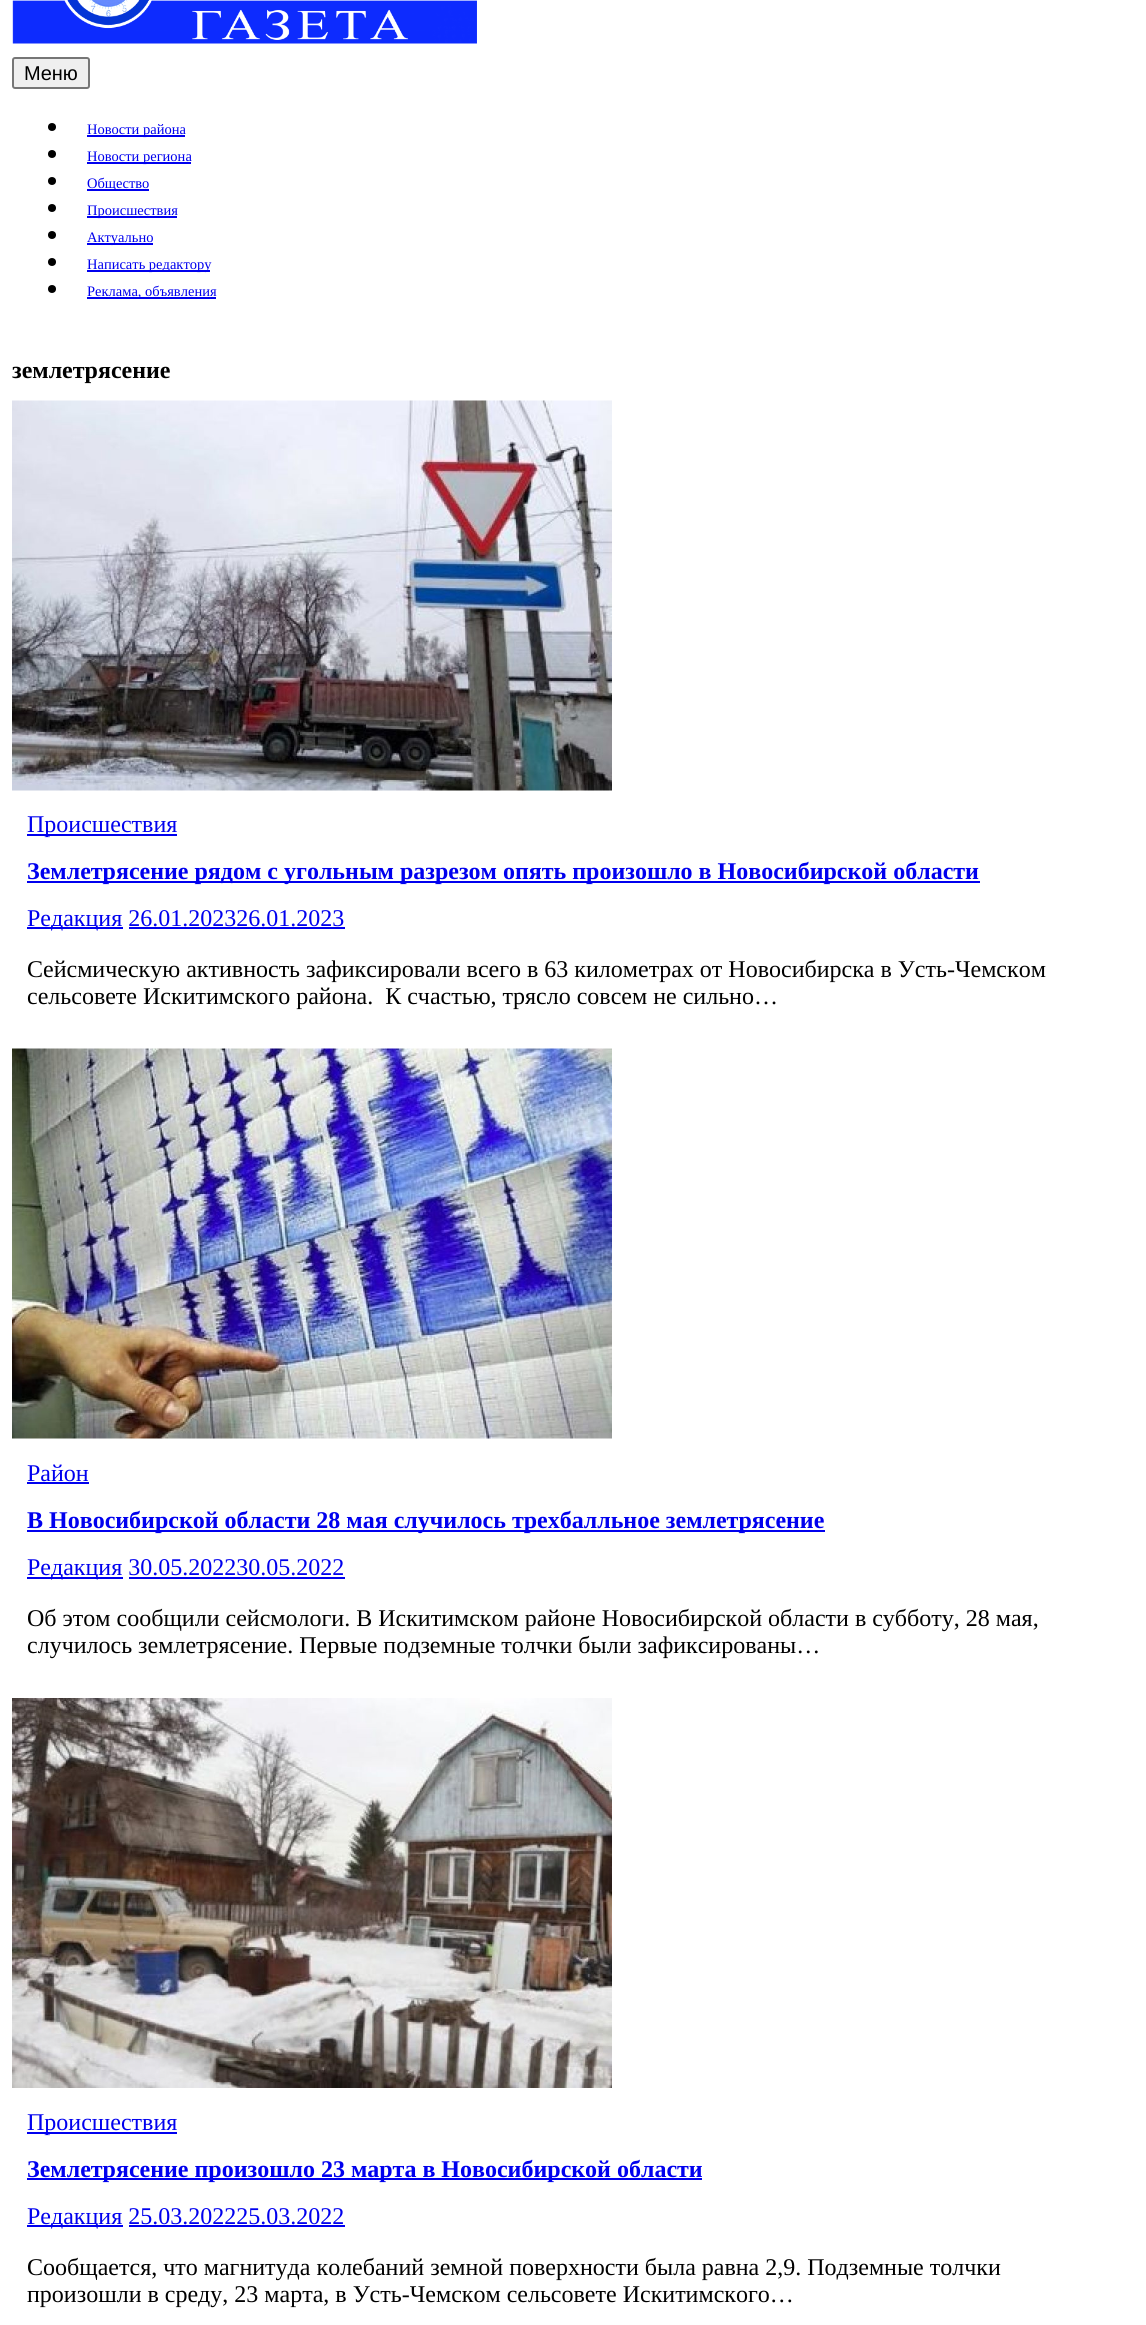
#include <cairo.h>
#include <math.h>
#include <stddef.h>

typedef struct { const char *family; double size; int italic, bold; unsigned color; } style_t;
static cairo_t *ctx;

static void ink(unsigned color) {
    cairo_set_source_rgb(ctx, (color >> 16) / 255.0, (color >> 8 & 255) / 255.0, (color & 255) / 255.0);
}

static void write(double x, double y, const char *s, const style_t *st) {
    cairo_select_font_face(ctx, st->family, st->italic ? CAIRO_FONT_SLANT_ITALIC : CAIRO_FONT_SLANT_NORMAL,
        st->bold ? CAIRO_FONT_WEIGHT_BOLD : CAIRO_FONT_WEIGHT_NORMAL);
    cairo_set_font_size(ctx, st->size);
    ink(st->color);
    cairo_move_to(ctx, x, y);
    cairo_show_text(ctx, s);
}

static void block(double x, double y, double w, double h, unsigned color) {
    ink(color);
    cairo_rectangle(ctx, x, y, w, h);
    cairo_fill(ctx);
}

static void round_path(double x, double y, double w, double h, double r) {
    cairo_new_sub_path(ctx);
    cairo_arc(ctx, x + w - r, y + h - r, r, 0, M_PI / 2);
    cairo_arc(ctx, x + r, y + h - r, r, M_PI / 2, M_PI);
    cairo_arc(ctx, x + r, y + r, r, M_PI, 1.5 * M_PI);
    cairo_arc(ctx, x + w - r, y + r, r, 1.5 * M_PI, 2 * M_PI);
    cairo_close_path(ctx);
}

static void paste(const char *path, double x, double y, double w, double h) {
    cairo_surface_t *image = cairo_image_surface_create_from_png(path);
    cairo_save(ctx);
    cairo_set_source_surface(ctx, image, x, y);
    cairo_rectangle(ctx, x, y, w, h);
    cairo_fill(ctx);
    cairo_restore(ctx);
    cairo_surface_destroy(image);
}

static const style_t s1 = {"Liberation Sans", 20, 0, 0, 0x000000};
static const style_t s2 = {"Liberation Serif", 14.5, 0, 0, 0x0000ee};
static const style_t s3 = {"Liberation Serif", 24, 0, 1, 0x000000};
static const style_t s4 = {"Liberation Serif", 24, 0, 0, 0x0000ee};
static const style_t s5 = {"Liberation Serif", 24, 0, 1, 0x0000ee};
static const style_t s6 = {"Liberation Serif", 24, 0, 0, 0x000000};

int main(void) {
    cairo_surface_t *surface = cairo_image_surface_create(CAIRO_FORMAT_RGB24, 1146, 2325);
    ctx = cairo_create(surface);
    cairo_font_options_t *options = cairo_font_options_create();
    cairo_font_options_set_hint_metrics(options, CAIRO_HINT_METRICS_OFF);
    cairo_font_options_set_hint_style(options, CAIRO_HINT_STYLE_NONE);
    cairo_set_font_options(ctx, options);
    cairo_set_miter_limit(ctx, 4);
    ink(0xffffff);
    cairo_paint(ctx);
    paste("pic1.png", 12, 0, 465, 44);
    ink(0xefefef);
    round_path(13, 58, 76, 30, 2);
    cairo_fill_preserve(ctx);
    ink(0x767676);
    cairo_stroke(ctx);
    write(24, 80, "Меню", &s1);
    cairo_new_path(ctx);
    cairo_arc(ctx, 52, 127, 4, 0, 2 * M_PI);
    cairo_fill(ctx);
    block(87, 135, 98, 2, 0x0000ee);
    write(87, 134, "Новости района", &s2);
    ink(0x000000);
    cairo_new_path(ctx);
    cairo_arc(ctx, 52, 154, 4, 0, 2 * M_PI);
    cairo_fill(ctx);
    block(87, 162, 104, 2, 0x0000ee);
    write(87, 161, "Новости региона", &s2);
    ink(0x000000);
    cairo_new_path(ctx);
    cairo_arc(ctx, 52, 181, 4, 0, 2 * M_PI);
    cairo_fill(ctx);
    block(87, 189, 62, 2, 0x0000ee);
    write(87, 188, "Общество", &s2);
    ink(0x000000);
    cairo_new_path(ctx);
    cairo_arc(ctx, 52, 208, 4, 0, 2 * M_PI);
    cairo_fill(ctx);
    block(87, 216, 90, 2, 0x0000ee);
    write(87, 215, "Происшествия", &s2);
    ink(0x000000);
    cairo_new_path(ctx);
    cairo_arc(ctx, 52, 235, 4, 0, 2 * M_PI);
    cairo_fill(ctx);
    block(87, 243, 66, 2, 0x0000ee);
    write(87, 242, "Актуально", &s2);
    ink(0x000000);
    cairo_new_path(ctx);
    cairo_arc(ctx, 52, 262, 4, 0, 2 * M_PI);
    cairo_fill(ctx);
    block(87, 270, 123, 2, 0x0000ee);
    write(87, 269, "Написать редактору", &s2);
    ink(0x000000);
    cairo_new_path(ctx);
    cairo_arc(ctx, 52, 289, 4, 0, 2 * M_PI);
    cairo_fill(ctx);
    block(87, 297, 129, 2, 0x0000ee);
    write(87, 296, "Реклама, объявления", &s2);
    write(12, 378, "землетрясение", &s3);
    paste("pic2.png", 12, 400, 600, 391);
    block(27, 834, 150, 2, 0x0000ee);
    write(27, 832, "Происшествия", &s4);
    block(27, 881, 953, 2, 0x0000ee);
    write(27, 879, "Землетрясение рядом с угольным разрезом опять произошло в Новосибирской области", &s5);
    block(27, 927, 96, 2, 0x0000ee);
    write(27, 926, "Редакция 26.01.202326.01.2023", &s4);
    block(129, 927, 216, 2, 0x0000ee);
    write(27, 977, "Сейсмическую активность зафиксировали всего в 63 километрах от Новосибирска в Усть-Чемском", &s6);
    write(27, 1004, "сельсовете Искитимского района.  К счастью, трясло совсем не сильно…", &s6);
    paste("pic3.png", 12, 1048, 600, 391);
    write(27, 1481, "Район", &s4);
    block(27, 1482, 62, 2, 0x0000ee);
    block(27, 1530, 798, 2, 0x0000ee);
    write(27, 1528, "В Новосибирской области 28 мая случилось трехбалльное землетрясение", &s5);
    block(27, 1577, 96, 2, 0x0000ee);
    write(27, 1575, "Редакция 30.05.202230.05.2022", &s4);
    block(129, 1577, 216, 2, 0x0000ee);
    write(27, 1626, "Об этом сообщили сейсмологи. В Искитимском районе Новосибирской области в субботу, 28 мая,", &s6);
    write(27, 1653, "случилось землетрясение. Первые подземные толчки были зафиксированы…", &s6);
    paste("pic4.png", 12, 1698, 600, 390);
    block(27, 2132, 150, 2, 0x0000ee);
    write(27, 2130, "Происшествия", &s4);
    block(27, 2178, 675, 2, 0x0000ee);
    write(27, 2177, "Землетрясение произошло 23 марта в Новосибирской области", &s5);
    block(27, 2225, 96, 2, 0x0000ee);
    write(27, 2224, "Редакция 25.03.202225.03.2022", &s4);
    block(129, 2225, 216, 2, 0x0000ee);
    write(27, 2275, "Сообщается, что магнитуда колебаний земной поверхности была равна 2,9. Подземные толчки", &s6);
    write(27, 2302, "произошли в среду, 23 марта, в Усть-Чемском сельсовете Искитимского…", &s6);
    cairo_surface_write_to_png(surface, "screenshot.png");
    cairo_font_options_destroy(options);
    cairo_destroy(ctx);
    cairo_surface_destroy(surface);
    return 0;
}
